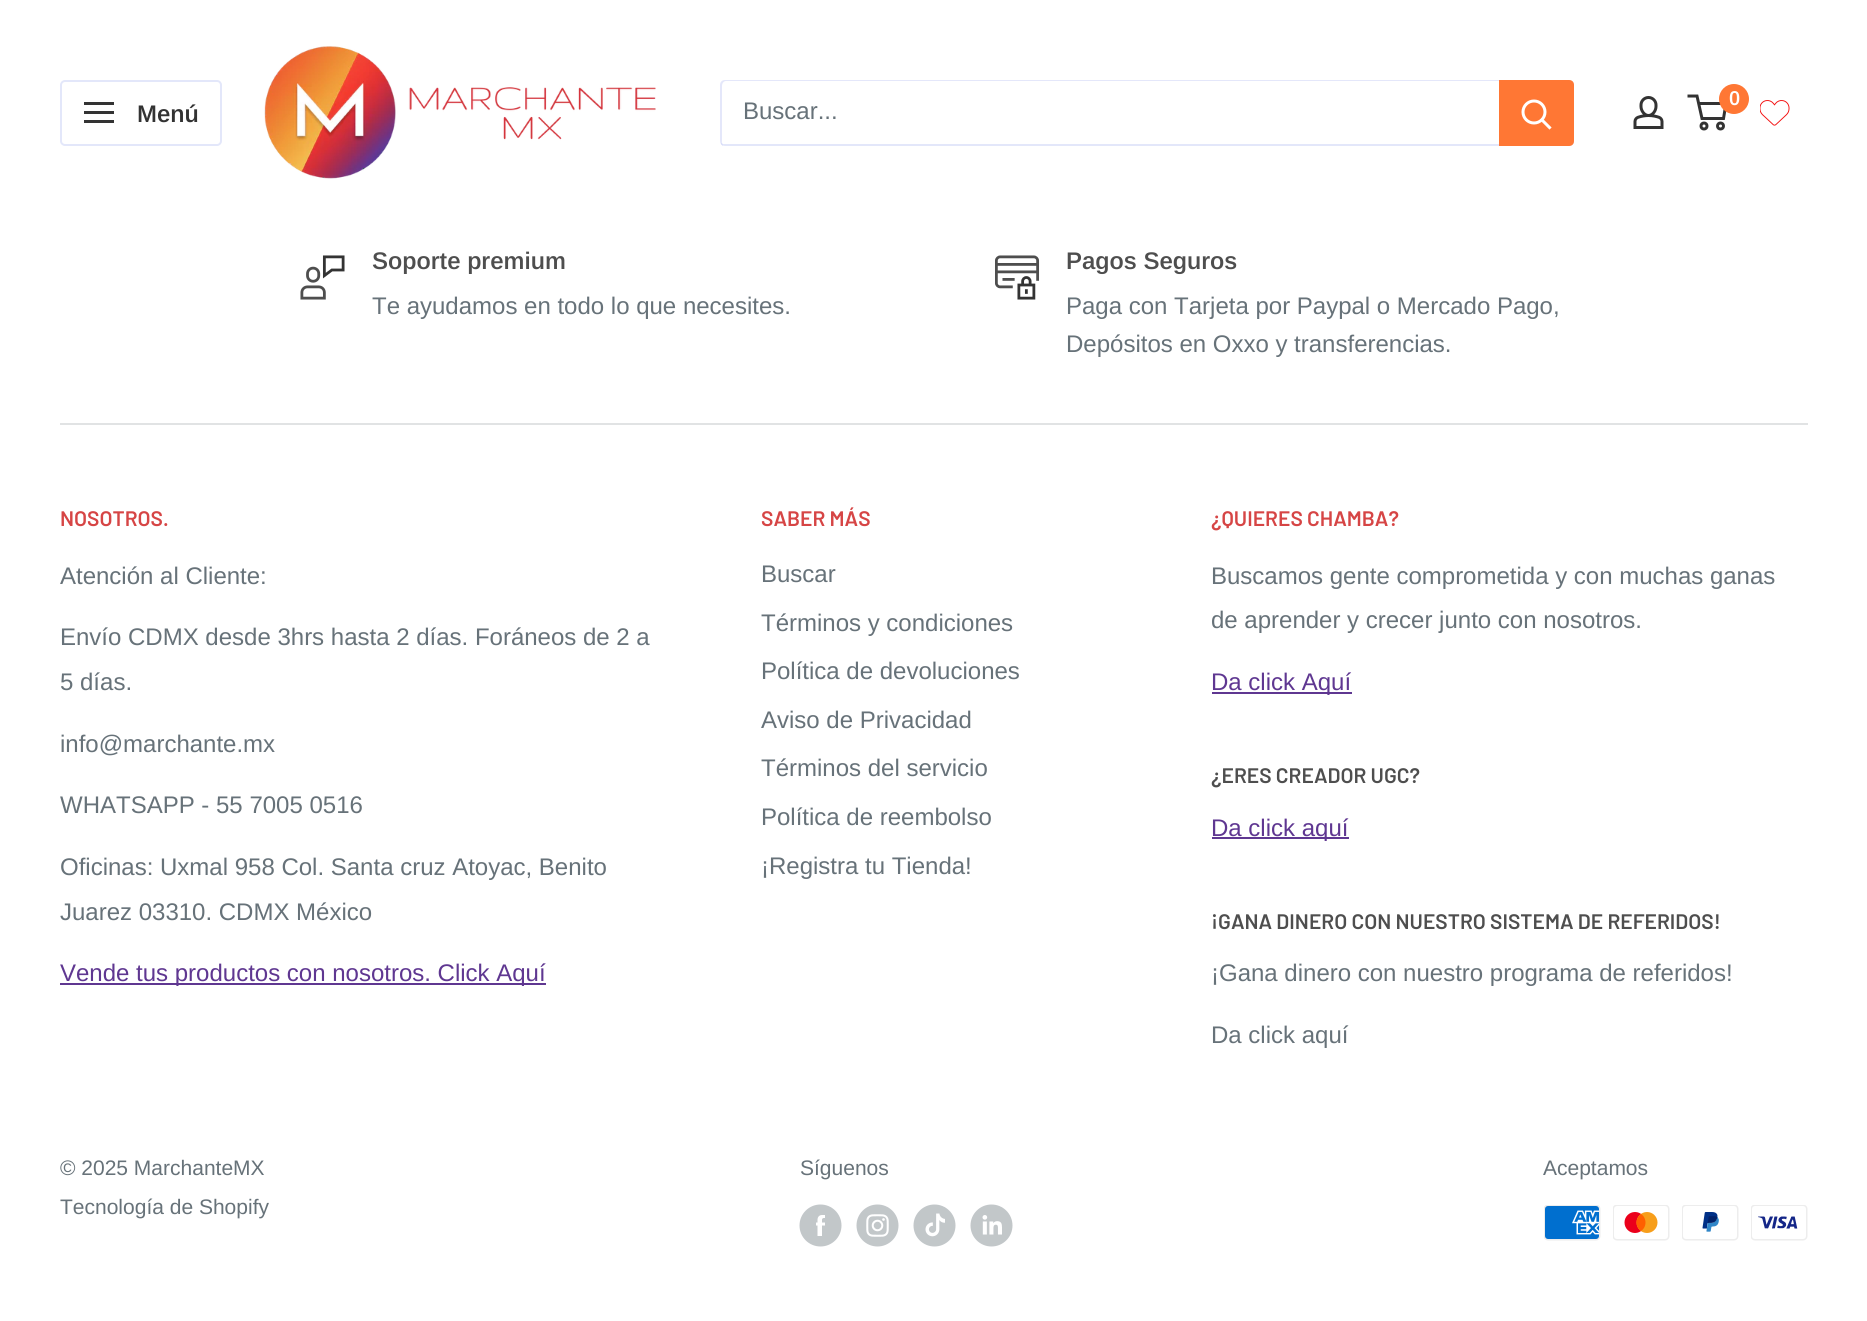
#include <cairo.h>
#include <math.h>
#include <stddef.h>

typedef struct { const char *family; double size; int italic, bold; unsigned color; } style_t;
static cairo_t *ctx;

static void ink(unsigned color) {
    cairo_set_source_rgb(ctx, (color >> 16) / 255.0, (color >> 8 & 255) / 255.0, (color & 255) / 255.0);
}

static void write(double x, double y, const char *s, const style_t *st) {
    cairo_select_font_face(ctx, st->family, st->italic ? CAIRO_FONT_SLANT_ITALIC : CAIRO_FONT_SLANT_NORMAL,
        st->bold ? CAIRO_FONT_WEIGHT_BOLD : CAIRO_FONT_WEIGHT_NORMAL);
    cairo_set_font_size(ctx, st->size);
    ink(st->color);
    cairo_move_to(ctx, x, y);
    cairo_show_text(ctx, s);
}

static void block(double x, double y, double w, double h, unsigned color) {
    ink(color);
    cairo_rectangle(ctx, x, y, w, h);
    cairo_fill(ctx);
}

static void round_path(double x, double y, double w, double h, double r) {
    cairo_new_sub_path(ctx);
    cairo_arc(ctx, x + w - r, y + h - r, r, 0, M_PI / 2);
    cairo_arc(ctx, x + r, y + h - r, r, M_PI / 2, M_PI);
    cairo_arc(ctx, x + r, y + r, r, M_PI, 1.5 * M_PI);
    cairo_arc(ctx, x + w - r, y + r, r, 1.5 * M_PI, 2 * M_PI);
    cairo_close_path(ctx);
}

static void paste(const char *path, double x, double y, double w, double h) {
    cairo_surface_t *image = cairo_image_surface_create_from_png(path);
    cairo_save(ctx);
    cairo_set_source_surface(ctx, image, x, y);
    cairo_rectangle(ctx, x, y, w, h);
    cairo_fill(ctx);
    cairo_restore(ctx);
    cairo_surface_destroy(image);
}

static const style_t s1 = {"Arimo SemiBold", 20, 0, 0, 0xffffff};
static const style_t s2 = {"Arimo SemiBold", 24, 0, 0, 0x333333};
static const style_t s3 = {"Arimo", 24, 0, 0, 0x677279};
static const style_t s4 = {"Arimo SemiBold", 24, 0, 0, 0x4e4e4e};
static const style_t s5 = {"Barlow SemiBold", 21, 0, 0, 0xd64545};
static const style_t s6 = {"Arimo", 24, 0, 0, 0x5f3791};
static const style_t s7 = {"Barlow SemiBold", 21, 0, 0, 0x4e4e4e};
static const style_t s8 = {"Arimo", 21, 0, 0, 0x677279};

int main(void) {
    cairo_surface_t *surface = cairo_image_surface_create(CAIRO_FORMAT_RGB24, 1867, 1321);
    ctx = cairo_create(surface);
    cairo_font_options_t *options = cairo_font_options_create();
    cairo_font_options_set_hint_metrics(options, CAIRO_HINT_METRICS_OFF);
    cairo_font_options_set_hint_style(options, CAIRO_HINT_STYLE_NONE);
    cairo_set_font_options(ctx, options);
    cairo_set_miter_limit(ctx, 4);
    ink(0xffffff);
    cairo_paint(ctx);
    paste("pic1.png", 264, 46, 392, 133);
    paste("pic2.png", 1633, 96, 31, 33);
    cairo_arc(ctx, 1704, 126, 3, 0, 2 * M_PI);
    ink(0x333333);
    cairo_set_line_width(ctx, 3);
    cairo_stroke(ctx);
    cairo_arc(ctx, 1720.5, 126, 3, 0, 2 * M_PI);
    cairo_stroke(ctx);
    cairo_new_path(ctx);
    cairo_move_to(ctx, 1698.5, 103.5);
    cairo_line_to(ctx, 1726, 103.5);
    cairo_line_to(ctx, 1723.5, 118.5);
    cairo_line_to(ctx, 1702, 118.5);
    cairo_line_to(ctx, 1697, 96);
    cairo_line_to(ctx, 1687.5, 96);
    cairo_stroke(ctx);
    ink(0xff7734);
    cairo_arc(ctx, 1734, 99, 15, 0, 2 * M_PI);
    cairo_fill(ctx);
    write(1729, 105, "0", &s1);
    paste("pic3.png", 1760, 100, 30, 26);
    round_path(61, 81, 160, 64, 4);
    ink(0xe3e7fa);
    cairo_set_line_width(ctx, 2);
    cairo_stroke(ctx);
    paste("pic4.png", 84, 102, 30, 21);
    write(137, 122, "Menú", &s2);
    ink(0xe3e7fa);
    cairo_new_path(ctx);
    cairo_move_to(ctx, 721, 143);
    cairo_curve_to(ctx, 721, 145, 723, 146, 725, 146);
    cairo_line_to(ctx, 1569, 146);
    cairo_curve_to(ctx, 1572, 146, 1574, 144, 1574, 141);
    cairo_line_to(ctx, 1574, 85);
    cairo_curve_to(ctx, 1574, 83, 1573, 82, 1572, 81);
    cairo_line_to(ctx, 1572, 140);
    cairo_curve_to(ctx, 1572, 142, 1570, 144, 1568, 144);
    cairo_line_to(ctx, 723, 144);
    cairo_close_path(ctx);
    cairo_fill(ctx);
    cairo_set_source_rgba(ctx, 0.639, 0.686, 0.937, 0.3);
    cairo_new_path(ctx);
    cairo_move_to(ctx, 726, 81);
    cairo_line_to(ctx, 1570, 81);
    cairo_line_to(ctx, 1573, 82);
    cairo_curve_to(ctx, 1572, 81, 1570, 80, 1569, 80);
    cairo_line_to(ctx, 725, 80);
    cairo_curve_to(ctx, 722, 80, 720, 82, 720, 85);
    cairo_line_to(ctx, 720, 141);
    cairo_curve_to(ctx, 720, 143, 721, 145, 723, 146);
    cairo_curve_to(ctx, 723, 145, 722, 144, 722, 142);
    cairo_line_to(ctx, 722, 86);
    cairo_curve_to(ctx, 722, 83, 724, 81, 726, 81);
    cairo_close_path(ctx);
    cairo_fill(ctx);
    write(743, 119, "Buscar...", &s3);
    ink(0xff7734);
    cairo_new_path(ctx);
    cairo_move_to(ctx, 1499, 80);
    cairo_line_to(ctx, 1569, 80);
    cairo_curve_to(ctx, 1572, 80, 1574, 82, 1574, 85);
    cairo_line_to(ctx, 1574, 141);
    cairo_curve_to(ctx, 1574, 144, 1572, 146, 1569, 146);
    cairo_line_to(ctx, 1499, 146);
    cairo_close_path(ctx);
    cairo_fill(ctx);
    cairo_new_path(ctx);
    cairo_move_to(ctx, 1549.5, 127.5);
    cairo_line_to(ctx, 1542, 120);
    ink(0xffffff);
    cairo_set_line_width(ctx, 3);
    cairo_set_line_cap(ctx, CAIRO_LINE_CAP_SQUARE);
    cairo_stroke(ctx);
    cairo_arc(ctx, 1534, 112, 11, 0, 2 * M_PI);
    cairo_set_line_cap(ctx, CAIRO_LINE_CAP_BUTT);
    cairo_stroke(ctx);
    paste("pic5.png", 300, 255, 45, 45);
    write(372, 269, "Soporte premium", &s4);
    write(372, 314, "Te ayudamos en todo lo que necesites.", &s3);
    paste("pic6.png", 995, 255, 45, 45);
    write(1066, 269, "Pagos Seguros", &s4);
    write(1066, 314, "Paga con Tarjeta por Paypal o Mercado Pago,", &s3);
    write(1066, 352, "Depósitos en Oxxo y transferencias.", &s3);
    block(60, 423, 1748, 2, 0xe1e3e4);
    write(60, 526, "NOSOTROS.", &s5);
    write(60, 584, "Atención al Cliente:", &s3);
    write(60, 645, "Envío CDMX desde 3hrs hasta 2 días. Foráneos de 2 a", &s3);
    write(60, 690, "5 días.", &s3);
    write(60, 752, "info@marchante.mx", &s3);
    write(60, 813, "WHATSAPP - 55 7005 0516", &s3);
    write(60, 875, "Oficinas: Uxmal 958 Col. Santa cruz Atoyac, Benito", &s3);
    write(60, 920, "Juarez 03310. CDMX México", &s3);
    block(60, 983, 486, 2, 0x5f3791);
    write(60, 981, "Vende tus productos con nosotros. Click Aquí", &s6);
    write(761, 526, "SABER MÁS", &s5);
    write(761, 582, "Buscar", &s3);
    write(761, 631, "Términos y condiciones", &s3);
    write(761, 679, "Política de devoluciones", &s3);
    write(761, 728, "Aviso de Privacidad", &s3);
    write(761, 776, "Términos del servicio", &s3);
    write(761, 825, "Política de reembolso", &s3);
    write(761, 874, "¡Registra tu Tienda!", &s3);
    write(1211, 526, "¿QUIERES CHAMBA?", &s5);
    write(1211, 584, "Buscamos gente comprometida y con muchas ganas", &s3);
    write(1211, 628, "de aprender y crecer junto con nosotros.", &s3);
    block(1212, 692, 140, 2, 0x5f3791);
    write(1211, 690, "Da click Aquí", &s6);
    write(1211, 783, "¿ERES CREADOR UGC?", &s7);
    block(1212, 837, 137, 2, 0x5f3791);
    write(1211, 836, "Da click aquí", &s6);
    write(1211, 929, "¡GANA DINERO CON NUESTRO SISTEMA DE REFERIDOS!", &s7);
    write(1211, 981, "¡Gana dinero con nuestro programa de referidos!", &s3);
    write(1211, 1043, "Da click aquí", &s3);
    write(60, 1175, "© 2025 MarchanteMX", &s8);
    write(60, 1214, "Tecnología de Shopify", &s8);
    write(800, 1175, "Síguenos", &s8);
    paste("pic7.png", 799, 1204, 43, 43);
    paste("pic8.png", 856, 1204, 43, 43);
    paste("pic9.png", 913, 1204, 43, 43);
    paste("pic10.png", 970, 1204, 43, 43);
    write(1543, 1175, "Aceptamos", &s8);
    paste("pic11.png", 1544, 1205, 57, 36);
    paste("pic12.png", 1613, 1205, 57, 36);
    paste("pic13.png", 1682, 1205, 57, 36);
    paste("pic14.png", 1751, 1205, 57, 36);
    cairo_surface_write_to_png(surface, "screenshot.png");
    cairo_font_options_destroy(options);
    cairo_destroy(ctx);
    cairo_surface_destroy(surface);
    return 0;
}
